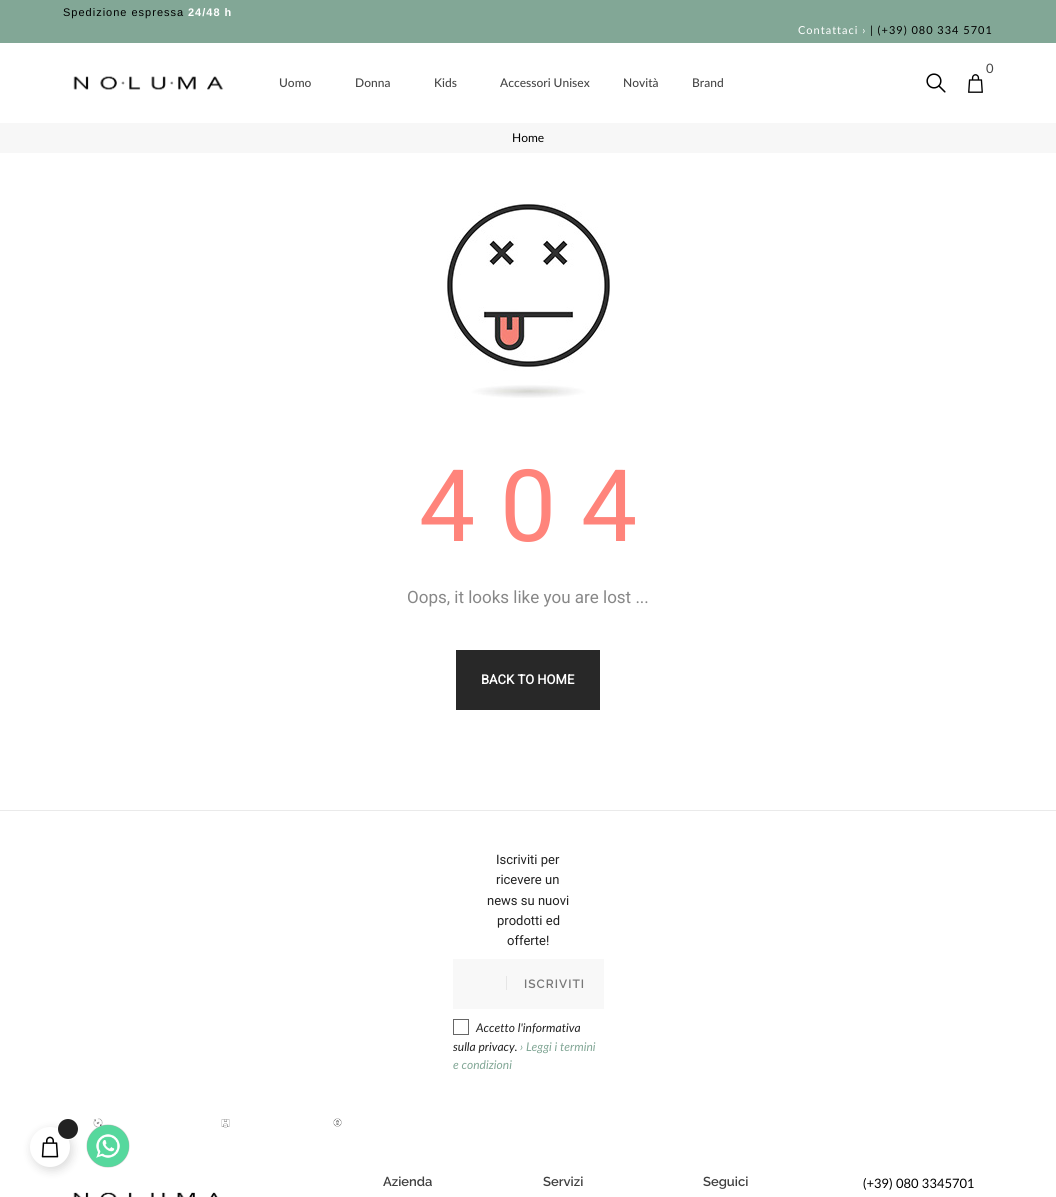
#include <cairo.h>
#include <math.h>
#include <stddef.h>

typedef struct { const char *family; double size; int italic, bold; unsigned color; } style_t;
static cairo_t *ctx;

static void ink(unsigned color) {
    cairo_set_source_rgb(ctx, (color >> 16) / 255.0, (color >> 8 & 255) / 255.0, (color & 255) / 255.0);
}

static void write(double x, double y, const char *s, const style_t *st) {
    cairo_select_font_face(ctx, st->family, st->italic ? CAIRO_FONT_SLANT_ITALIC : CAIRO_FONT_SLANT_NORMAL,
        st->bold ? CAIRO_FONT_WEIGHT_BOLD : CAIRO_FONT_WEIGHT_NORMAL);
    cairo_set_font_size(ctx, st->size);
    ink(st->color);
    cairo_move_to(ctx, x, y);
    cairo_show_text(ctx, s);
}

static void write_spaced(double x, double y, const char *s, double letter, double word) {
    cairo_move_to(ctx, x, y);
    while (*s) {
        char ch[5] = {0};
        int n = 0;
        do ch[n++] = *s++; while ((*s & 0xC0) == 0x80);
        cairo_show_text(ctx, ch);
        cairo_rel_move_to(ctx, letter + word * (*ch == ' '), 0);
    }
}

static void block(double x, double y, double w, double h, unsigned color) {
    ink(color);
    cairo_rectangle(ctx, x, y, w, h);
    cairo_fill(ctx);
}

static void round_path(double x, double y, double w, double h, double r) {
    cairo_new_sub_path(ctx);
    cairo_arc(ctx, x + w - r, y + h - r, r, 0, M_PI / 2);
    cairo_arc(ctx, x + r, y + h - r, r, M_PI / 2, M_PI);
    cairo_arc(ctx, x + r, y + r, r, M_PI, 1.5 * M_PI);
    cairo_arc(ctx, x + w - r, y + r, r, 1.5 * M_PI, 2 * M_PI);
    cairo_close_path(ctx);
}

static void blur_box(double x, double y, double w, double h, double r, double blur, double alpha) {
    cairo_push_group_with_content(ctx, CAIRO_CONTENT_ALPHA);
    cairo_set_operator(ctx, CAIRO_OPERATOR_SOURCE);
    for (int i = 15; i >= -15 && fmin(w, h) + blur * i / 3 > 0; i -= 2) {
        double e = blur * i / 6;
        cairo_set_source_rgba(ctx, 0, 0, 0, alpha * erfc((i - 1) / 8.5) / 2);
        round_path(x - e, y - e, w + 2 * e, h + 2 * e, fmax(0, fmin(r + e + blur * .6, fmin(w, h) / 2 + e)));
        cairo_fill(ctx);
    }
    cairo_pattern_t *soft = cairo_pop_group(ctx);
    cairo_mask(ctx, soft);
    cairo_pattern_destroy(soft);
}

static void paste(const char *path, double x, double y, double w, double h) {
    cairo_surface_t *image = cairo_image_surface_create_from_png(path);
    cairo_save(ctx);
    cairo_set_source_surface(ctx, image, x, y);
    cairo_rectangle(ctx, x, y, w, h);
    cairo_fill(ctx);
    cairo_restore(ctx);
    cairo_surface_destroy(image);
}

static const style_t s1 = {"Lato", 13, 0, 0, 0x464646};
static const style_t s2 = {"Lato Medium", 12, 0, 0, 0x464646};
static const style_t s3 = {"Lato", 12, 0, 0, 0x000000};
static const style_t s4 = {"Roboto", 100, 0, 0, 0xff847b};
static const style_t s5 = {"Roboto", 17, 0, 0, 0x878787};
static const style_t s6 = {"Roboto", 13, 0, 1, 0xffffff};
static const style_t s7 = {"Roboto", 13, 0, 0, 0x212121};
static const style_t s8 = {"Lato", 12, 1, 0, 0x212121};
static const style_t s9 = {"Lato", 12, 1, 0, 0x82a796};
static const style_t s10 = {"Raleway SemiBold", 13, 0, 0, 0x404040};
static const style_t s11 = {"Lato", 13, 0, 0, 0x000000};

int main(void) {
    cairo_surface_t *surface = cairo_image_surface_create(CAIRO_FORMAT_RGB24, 1056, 1197);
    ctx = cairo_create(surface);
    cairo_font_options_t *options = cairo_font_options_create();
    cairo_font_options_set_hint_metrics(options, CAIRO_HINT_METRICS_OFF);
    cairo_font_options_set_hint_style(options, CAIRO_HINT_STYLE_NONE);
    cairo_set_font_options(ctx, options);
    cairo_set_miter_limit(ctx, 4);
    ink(0xffffff);
    cairo_paint(ctx);
    ink(0x000000);
    blur_box(32, 1130, 40, 40, 20, 5, 0.15);
    ink(0xffffff);
    cairo_arc(ctx, 50, 1147, 20, 0, 2 * M_PI);
    cairo_fill(ctx);
    paste("pic1.png", 41, 1136, 18, 22);
    cairo_arc(ctx, 68, 1129, 10.5, 0, 2 * M_PI);
    cairo_set_line_width(ctx, 1);
    cairo_stroke(ctx);
    ink(0x222222);
    cairo_arc(ctx, 68, 1129, 10, 0, 2 * M_PI);
    cairo_fill(ctx);
    block(0, 0, 1056, 43, 0x82a796);
    cairo_select_font_face(ctx, "Liberation Sans", CAIRO_FONT_SLANT_NORMAL, CAIRO_FONT_WEIGHT_NORMAL);
    cairo_set_font_size(ctx, 11);
    ink(0x000000);
    write_spaced(63, 16, "Spedizione espressa", 1, 0);
    cairo_select_font_face(ctx, "Liberation Sans", CAIRO_FONT_SLANT_NORMAL, CAIRO_FONT_WEIGHT_BOLD);
    ink(0xffffff);
    write_spaced(188, 16, "24/48 h", 1, 0);
    cairo_select_font_face(ctx, "Lato", CAIRO_FONT_SLANT_NORMAL, CAIRO_FONT_WEIGHT_NORMAL);
    write_spaced(798, 34, "Contattaci ›", 1, 0);
    ink(0x000000);
    write_spaced(870, 34, "| (+39) 080 334 5701", 1, 0);
    paste("pic2.png", 968, 74, 15, 19);
    write(986, 73, "0", &s1);
    paste("pic3.png", 926, 73, 20, 20);
    paste("pic4.png", 73, 76, 151, 14);
    write(279, 87, "Uomo", &s2);
    write(355, 87, "Donna", &s2);
    write(434, 87, "Kids", &s2);
    write(500, 87, "Accessori Unisex", &s2);
    write(623, 87, "Novità", &s2);
    write(692, 87, "Brand", &s2);
    block(0, 123, 1056, 30, 0xf7f7f7);
    write(512, 142, "Home", &s3);
    paste("pic5.png", 447, 203, 163, 195);
    write(419, 541, "4 0 4", &s4);
    write(407, 603, "Oops, it looks like you are lost ...", &s5);
    block(456, 650, 144, 60, 0x282828);
    write(481, 684, "BACK TO HOME", &s6);
    block(0, 810, 1056, 1, 0xeaeaea);
    write(496, 864, "Iscriviti per", &s7);
    write(496, 884, "ricevere un", &s7);
    write(487, 905, "news su nuovi", &s7);
    write(497, 925, "prodotti ed", &s7);
    write(507, 945, "offerte!", &s7);
    block(453, 959, 151, 50, 0xf8f8f8);
    block(506, 976, 1, 14, 0xe6e6e6);
    cairo_select_font_face(ctx, "Raleway SemiBold", CAIRO_FONT_SLANT_NORMAL, CAIRO_FONT_WEIGHT_NORMAL);
    cairo_set_font_size(ctx, 12);
    ink(0x787878);
    write_spaced(524, 988, "ISCRIVITI", 1, 0);
    cairo_rectangle(ctx, 453.5, 1019.5, 15, 15);
    ink(0x666666);
    cairo_stroke(ctx);
    write(476, 1032, "Accetto l'informativa", &s8);
    write(453, 1051, "sulla privacy.", &s8);
    write(520, 1051, "› Leggi i termini", &s9);
    write(453, 1069, "e condizioni", &s9);
    paste("pic6.png", 93, 1118, 10, 10);
    paste("pic7.png", 221, 1119, 9, 9);
    paste("pic8.png", 333, 1118, 9, 9);
    write(383, 1186, "Azienda", &s10);
    write(543, 1186, "Servizi", &s10);
    write(703, 1186, "Seguici", &s10);
    write(863, 1188, "(+39) 080 3345701", &s11);
    paste("pic9.png", 73, 1192, 145, 5);
    ink(0x999999);
    blur_box(87, 1125, 42, 42, 21, 0.5, 1);
    ink(0x56d89d);
    cairo_arc(ctx, 108, 1146, 21, 0, 2 * M_PI);
    cairo_fill(ctx);
    paste("pic10.png", 96, 1134, 24, 24);
    cairo_surface_write_to_png(surface, "screenshot.png");
    cairo_font_options_destroy(options);
    cairo_destroy(ctx);
    cairo_surface_destroy(surface);
    return 0;
}
